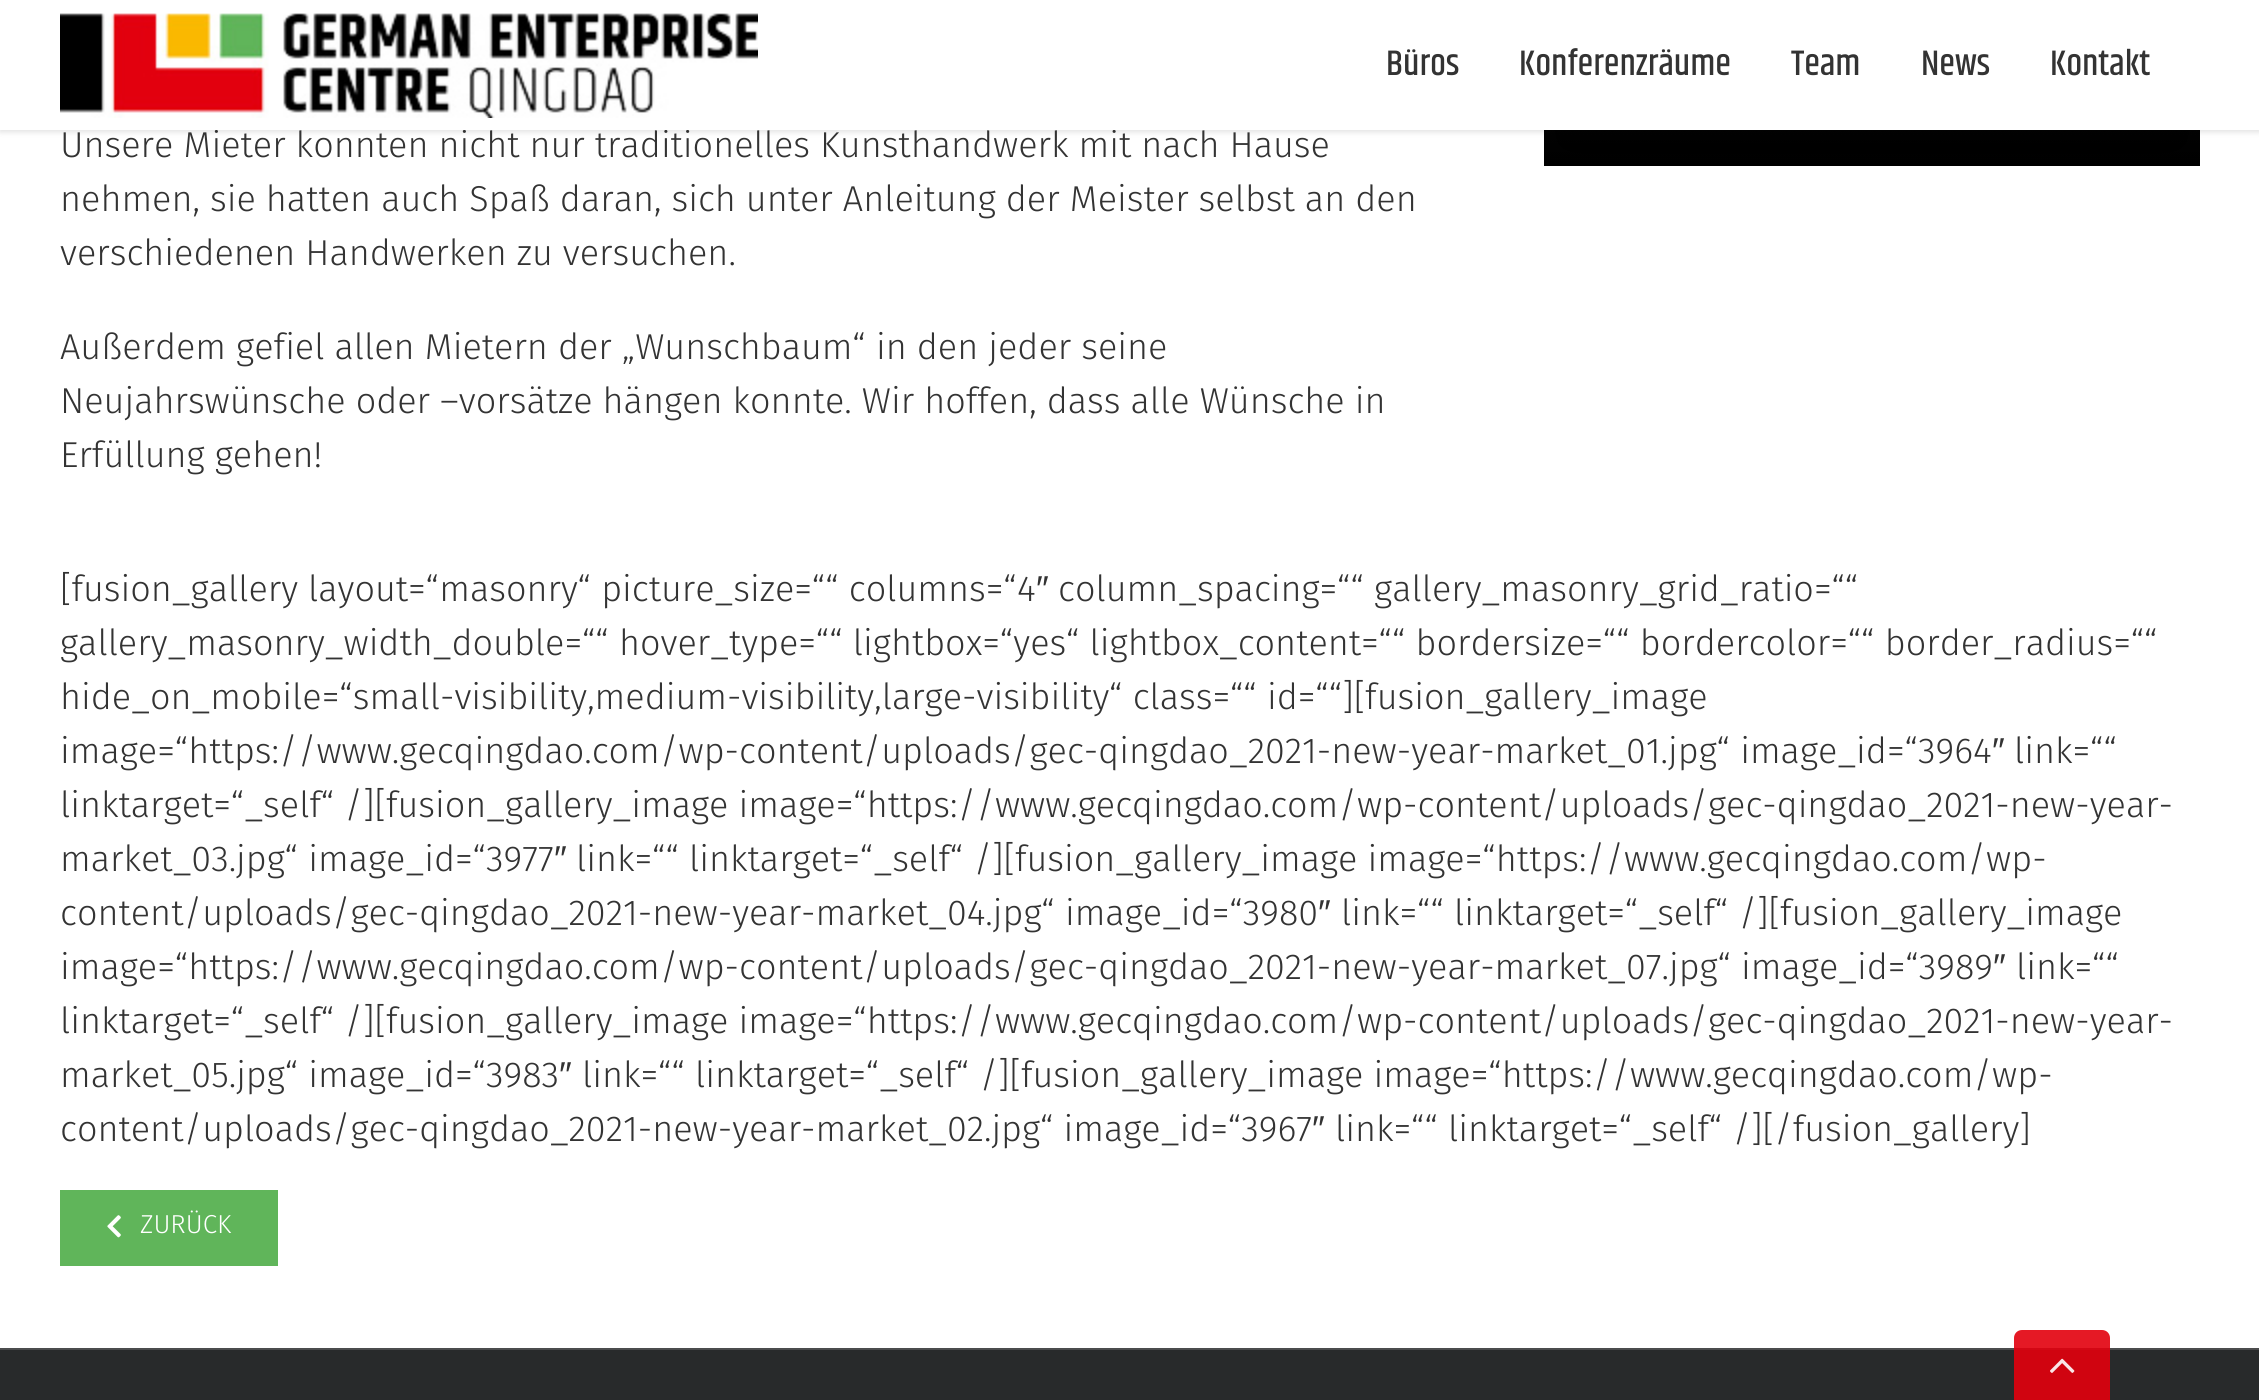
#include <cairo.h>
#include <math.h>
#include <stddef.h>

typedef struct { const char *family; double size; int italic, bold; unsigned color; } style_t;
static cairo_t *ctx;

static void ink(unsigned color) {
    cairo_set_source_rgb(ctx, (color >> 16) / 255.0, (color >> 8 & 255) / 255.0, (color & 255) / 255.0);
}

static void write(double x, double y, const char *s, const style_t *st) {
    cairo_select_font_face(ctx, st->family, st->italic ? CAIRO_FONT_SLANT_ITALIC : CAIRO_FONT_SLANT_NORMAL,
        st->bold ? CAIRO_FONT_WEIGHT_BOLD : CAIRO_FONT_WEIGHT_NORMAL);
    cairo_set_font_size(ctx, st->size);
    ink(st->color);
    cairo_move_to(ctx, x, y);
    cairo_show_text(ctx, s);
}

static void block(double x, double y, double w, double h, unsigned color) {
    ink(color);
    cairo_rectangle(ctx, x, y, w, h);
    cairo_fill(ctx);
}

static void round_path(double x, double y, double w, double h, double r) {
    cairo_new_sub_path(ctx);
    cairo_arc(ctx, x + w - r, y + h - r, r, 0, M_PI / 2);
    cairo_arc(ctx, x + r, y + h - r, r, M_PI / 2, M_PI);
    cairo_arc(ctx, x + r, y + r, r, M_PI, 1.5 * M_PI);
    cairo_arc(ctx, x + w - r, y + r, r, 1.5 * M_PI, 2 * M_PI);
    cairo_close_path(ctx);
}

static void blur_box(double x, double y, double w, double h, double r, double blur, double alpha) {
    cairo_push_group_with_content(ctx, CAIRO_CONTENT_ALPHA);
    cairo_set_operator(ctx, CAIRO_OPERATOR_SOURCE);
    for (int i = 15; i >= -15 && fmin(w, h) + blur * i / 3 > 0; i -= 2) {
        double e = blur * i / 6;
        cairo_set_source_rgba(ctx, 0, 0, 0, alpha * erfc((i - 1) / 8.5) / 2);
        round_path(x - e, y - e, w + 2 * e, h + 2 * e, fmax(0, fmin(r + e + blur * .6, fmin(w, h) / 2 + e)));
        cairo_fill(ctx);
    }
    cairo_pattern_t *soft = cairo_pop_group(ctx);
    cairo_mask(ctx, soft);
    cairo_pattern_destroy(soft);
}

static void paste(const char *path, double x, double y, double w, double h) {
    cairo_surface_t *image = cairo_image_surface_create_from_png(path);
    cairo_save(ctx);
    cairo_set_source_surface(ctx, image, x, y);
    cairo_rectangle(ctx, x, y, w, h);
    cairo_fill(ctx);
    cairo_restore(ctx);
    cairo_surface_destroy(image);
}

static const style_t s1 = {"Fira Sans Light", 36, 0, 0, 0x333333};
static const style_t s2 = {"Khand Medium", 36, 0, 0, 0x333333};
static const style_t s3 = {"Liberation Sans", 36, 0, 0, 0x333333};
static const style_t s4 = {"Fira Sans Light", 26, 0, 0, 0xffffff};

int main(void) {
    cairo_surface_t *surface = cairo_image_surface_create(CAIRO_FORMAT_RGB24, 2259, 1400);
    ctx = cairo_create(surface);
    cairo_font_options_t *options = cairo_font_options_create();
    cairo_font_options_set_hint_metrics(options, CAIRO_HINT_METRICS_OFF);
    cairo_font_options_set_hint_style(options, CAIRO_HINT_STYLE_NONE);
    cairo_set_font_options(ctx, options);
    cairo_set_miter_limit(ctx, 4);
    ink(0xffffff);
    cairo_paint(ctx);
    paste("pic2.png", 1544, 130, 656, 36);
    ink(0x000000);
    blur_box(0, 2, 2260, 130, 0, 3, 0.12);
    write(60, 157, "Unsere Mieter konnten nicht nur traditionelles Kunsthandwerk mit nach Hause", &s1);
    block(0, 0, 2259, 130, 0xffffff);
    paste("pic1.png", 60, 13, 698, 105);
    write(1386, 75, "Büros", &s2);
    write(1519, 75, "Konferenzräume", &s2);
    write(1791, 75, "Team", &s2);
    write(1921, 75, "News", &s2);
    write(2050, 75, "Kontakt", &s2);
    write(60, 211, "nehmen, sie hatten auch Spaß daran, sich unter Anleitung der Meister selbst an den", &s1);
    write(60, 265, "verschiedenen Handwerken zu versuchen.", &s1);
    write(60, 359, "Außerdem gefiel allen Mietern der „Wunschbaum“ in den jeder seine", &s1);
    write(60, 413, "Neujahrswünsche oder –vorsätze hängen konnte. Wir hoffen, dass alle Wünsche in", &s1);
    write(60, 467, "Erfüllung gehen!", &s1);
    write(60, 601, "[fusion_gallery layout=“masonry“ picture_size=““ columns=“4", &s1);
    write(1036, 601, "″", &s3);
    write(1058, 601, "column_spacing=““ gallery_masonry_grid_ratio=““", &s1);
    write(60, 655, "gallery_masonry_width_double=““ hover_type=““ lightbox=“yes“ lightbox_content=““ bordersize=““ bordercolor=““ border_radius=““", &s1);
    write(60, 709, "hide_on_mobile=“small-visibility,medium-visibility,large-visibility“ class=““ id=““][fusion_gallery_image", &s1);
    write(60, 763, "image=“https://www.gecqingdao.com/wp-content/uploads/gec-qingdao_2021-new-year-market_01.jpg“ image_id=“3964", &s1);
    write(1992, 763, "″", &s3);
    write(2014, 763, "link=““", &s1);
    write(60, 817, "linktarget=“_self“ /][fusion_gallery_image image=“https://www.gecqingdao.com/wp-content/uploads/gec-qingdao_2021-new-year-", &s1);
    write(60, 871, "market_03.jpg“ image_id=“3977", &s1);
    write(554, 871, "″", &s3);
    write(576, 871, "link=““ linktarget=“_self“ /][fusion_gallery_image image=“https://www.gecqingdao.com/wp-", &s1);
    write(60, 925, "content/uploads/gec-qingdao_2021-new-year-market_04.jpg“ image_id=“3980", &s1);
    write(1318, 925, "″", &s3);
    write(1341, 925, "link=““ linktarget=“_self“ /][fusion_gallery_image", &s1);
    write(60, 979, "image=“https://www.gecqingdao.com/wp-content/uploads/gec-qingdao_2021-new-year-market_07.jpg“ image_id=“3989", &s1);
    write(1993, 979, "″", &s3);
    write(2016, 979, "link=““", &s1);
    write(60, 1033, "linktarget=“_self“ /][fusion_gallery_image image=“https://www.gecqingdao.com/wp-content/uploads/gec-qingdao_2021-new-year-", &s1);
    write(60, 1087, "market_05.jpg“ image_id=“3983", &s1);
    write(559, 1087, "″", &s3);
    write(582, 1087, "link=““ linktarget=“_self“ /][fusion_gallery_image image=“https://www.gecqingdao.com/wp-", &s1);
    write(60, 1141, "content/uploads/gec-qingdao_2021-new-year-market_02.jpg“ image_id=“3967", &s1);
    write(1312, 1141, "″", &s3);
    write(1335, 1141, "link=““ linktarget=“_self“ /][/fusion_gallery]", &s1);
    block(60, 1190, 218, 76, 0x60b55a);
    paste("pic3.png", 107, 1215, 14, 23);
    write(140, 1233, "ZURÜCK", &s4);
    block(0, 1350, 2259, 50, 0x282a2b);
    block(0, 1348, 2259, 2, 0x4b4c4d);
    cairo_set_source_rgba(ctx, 0.886, 0, 0.055, 0.9);
    cairo_new_path(ctx);
    cairo_move_to(ctx, 2022, 1330);
    cairo_line_to(ctx, 2102, 1330);
    cairo_curve_to(ctx, 2106.5, 1330, 2110, 1333.5, 2110, 1338);
    cairo_line_to(ctx, 2110, 1400);
    cairo_line_to(ctx, 2014, 1400);
    cairo_line_to(ctx, 2014, 1338);
    cairo_curve_to(ctx, 2014, 1333.5, 2017.5, 1330, 2022, 1330);
    cairo_close_path(ctx);
    cairo_fill(ctx);
    paste("pic4.png", 2050, 1358, 25, 15);
    cairo_surface_write_to_png(surface, "screenshot.png");
    cairo_font_options_destroy(options);
    cairo_destroy(ctx);
    cairo_surface_destroy(surface);
    return 0;
}
